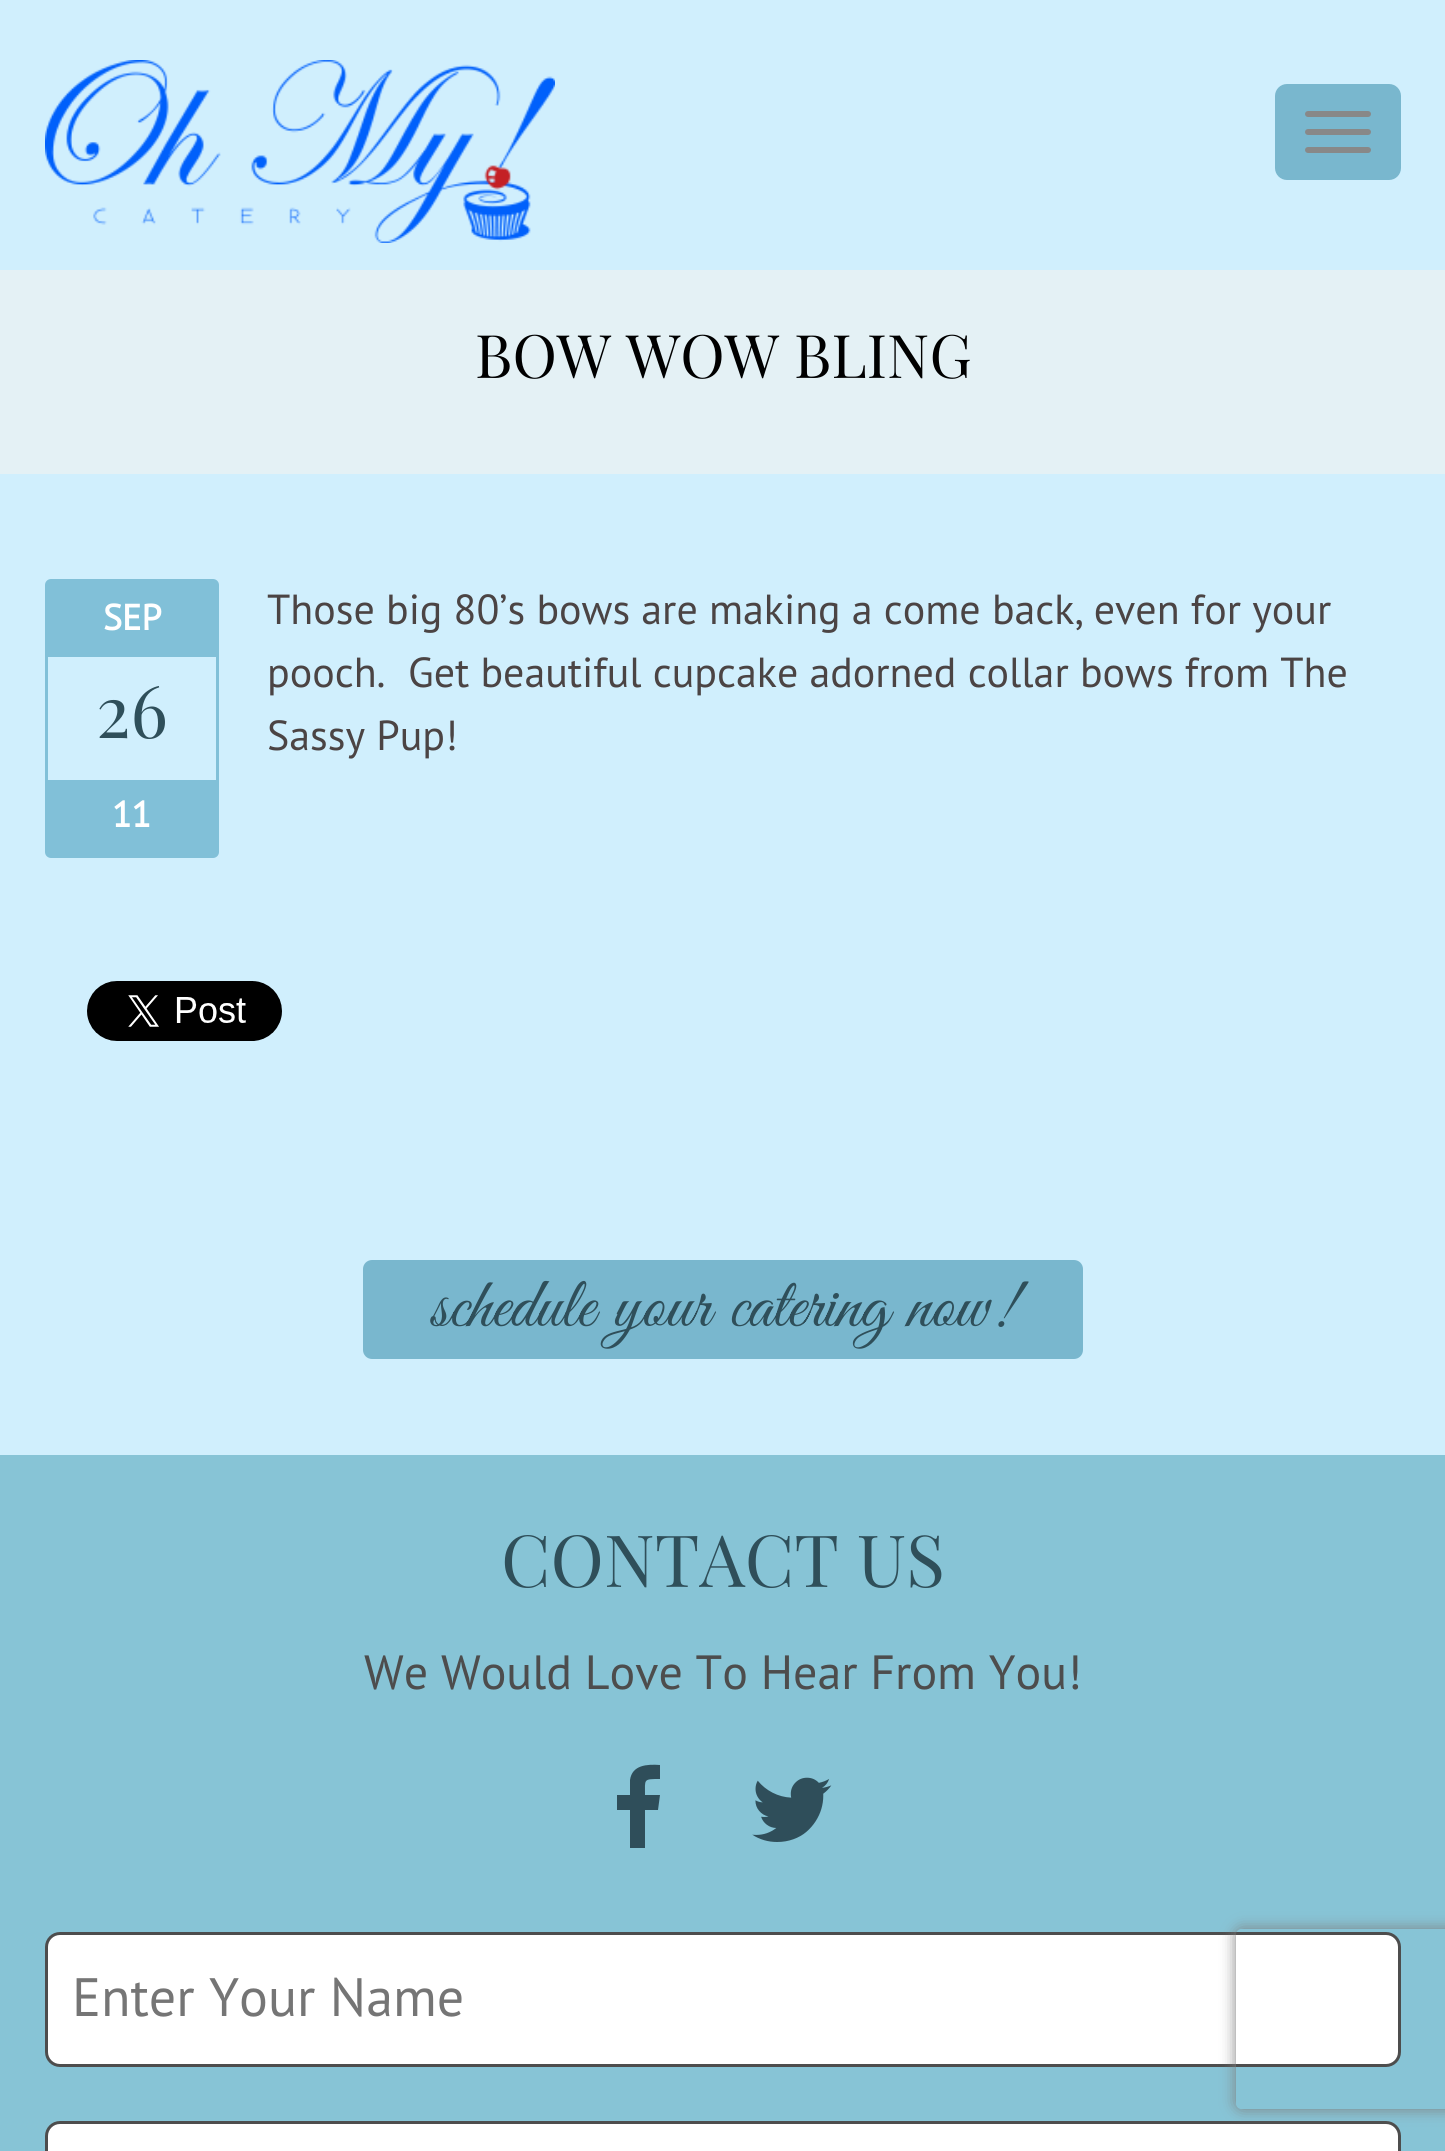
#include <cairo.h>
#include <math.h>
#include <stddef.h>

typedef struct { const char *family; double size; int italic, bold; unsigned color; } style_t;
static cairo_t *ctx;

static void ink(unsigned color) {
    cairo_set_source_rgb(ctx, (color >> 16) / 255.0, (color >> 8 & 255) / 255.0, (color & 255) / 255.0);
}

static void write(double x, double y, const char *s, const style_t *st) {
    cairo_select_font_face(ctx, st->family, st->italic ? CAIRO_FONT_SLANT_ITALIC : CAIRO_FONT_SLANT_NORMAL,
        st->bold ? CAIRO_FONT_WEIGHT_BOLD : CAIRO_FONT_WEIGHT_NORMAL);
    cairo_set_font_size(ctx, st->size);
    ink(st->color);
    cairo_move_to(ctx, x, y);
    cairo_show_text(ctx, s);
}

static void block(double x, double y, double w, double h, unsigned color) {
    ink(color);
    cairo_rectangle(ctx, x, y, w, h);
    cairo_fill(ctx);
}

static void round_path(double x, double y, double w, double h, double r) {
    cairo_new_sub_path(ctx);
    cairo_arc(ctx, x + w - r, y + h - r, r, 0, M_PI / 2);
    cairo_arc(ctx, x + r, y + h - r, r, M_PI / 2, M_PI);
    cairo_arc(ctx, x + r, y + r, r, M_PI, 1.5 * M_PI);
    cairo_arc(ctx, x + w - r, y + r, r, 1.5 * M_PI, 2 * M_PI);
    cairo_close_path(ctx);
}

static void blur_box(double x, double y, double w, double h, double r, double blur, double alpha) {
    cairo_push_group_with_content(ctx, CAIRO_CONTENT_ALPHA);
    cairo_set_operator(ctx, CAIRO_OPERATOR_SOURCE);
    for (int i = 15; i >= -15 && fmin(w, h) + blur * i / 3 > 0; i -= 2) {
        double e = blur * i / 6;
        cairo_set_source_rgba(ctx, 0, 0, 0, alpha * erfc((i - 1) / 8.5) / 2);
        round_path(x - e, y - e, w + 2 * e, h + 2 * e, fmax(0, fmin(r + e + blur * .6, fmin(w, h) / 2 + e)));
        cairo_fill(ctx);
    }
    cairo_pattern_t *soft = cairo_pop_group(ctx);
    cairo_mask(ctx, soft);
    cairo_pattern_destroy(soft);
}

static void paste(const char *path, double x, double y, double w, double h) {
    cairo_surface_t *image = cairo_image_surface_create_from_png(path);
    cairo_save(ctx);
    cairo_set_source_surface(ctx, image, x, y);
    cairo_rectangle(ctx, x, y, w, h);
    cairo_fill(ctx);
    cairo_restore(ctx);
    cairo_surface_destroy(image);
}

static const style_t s1 = {"Playfair Display", 60, 0, 0, 0x000000};
static const style_t s2 = {"PT Sans", 36, 0, 1, 0xffffff};
static const style_t s3 = {"Playfair Display", 72, 0, 0, 0x2f4f5a};
static const style_t s4 = {"PT Sans", 42, 0, 0, 0x4b4444};
static const style_t s5 = {"Great Vibes", 72, 0, 0, 0x2f4f5a};
static const style_t s6 = {"PT Sans", 48, 0, 0, 0x4d4d4d};
static const style_t s7 = {"PT Sans", 54, 0, 0, 0x757575};

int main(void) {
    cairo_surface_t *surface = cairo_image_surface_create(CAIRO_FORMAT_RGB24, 1445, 2151);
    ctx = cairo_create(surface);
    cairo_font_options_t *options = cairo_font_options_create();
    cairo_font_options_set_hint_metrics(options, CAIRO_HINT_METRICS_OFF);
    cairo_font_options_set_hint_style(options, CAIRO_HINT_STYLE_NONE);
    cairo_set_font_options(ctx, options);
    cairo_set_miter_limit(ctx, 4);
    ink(0xd0effd);
    cairo_paint(ctx);
    paste("pic1.png", 45, 60, 510, 183);
    ink(0x79b7ce);
    round_path(1275, 84, 126, 96, 12);
    cairo_fill(ctx);
    ink(0x888888);
    round_path(1305, 111, 66, 6, 3);
    cairo_fill(ctx);
    round_path(1305, 129, 66, 6, 3);
    cairo_fill(ctx);
    round_path(1305, 147, 66, 6, 3);
    cairo_fill(ctx);
    block(0, 270, 1445, 204, 0xe4f1f5);
    write(475, 378, "BOW WOW BLING", &s1);
    round_path(46.5, 580.5, 171, 276, 4.5);
    ink(0x81c0d8);
    cairo_set_line_width(ctx, 3);
    cairo_stroke(ctx);
    block(48, 582, 168, 75, 0x81c0d8);
    write(103, 630, "SEP", &s2);
    write(96, 738, "26", &s3);
    block(48, 780, 168, 75, 0x81c0d8);
    write(112, 827, "11", &s2);
    write(267, 624, "Those big 80’s bows are making a come back, even for your", &s4);
    write(267, 687, "pooch.  Get beautiful cupcake adorned collar bows from The", &s4);
    write(267, 750, "Sassy Pup!", &s4);
    paste("pic2.png", 87, 981, 195, 60);
    ink(0x79b7ce);
    round_path(363, 1260, 720, 99, 9);
    cairo_fill(ctx);
    write(431, 1326, "schedule your catering now!", &s5);
    block(0, 1455, 1445, 696, 0x87c4d6);
    write(501, 1587, "CONTACT US", &s3);
    write(364, 1689, "We Would Love To Hear From You!", &s6);
    ink(0x2f4e5a);
    cairo_new_path(ctx);
    cairo_move_to(ctx, 660, 1765);
    cairo_line_to(ctx, 660, 1779);
    cairo_curve_to(ctx, 643, 1779, 645, 1779, 645, 1795);
    cairo_line_to(ctx, 660, 1795);
    cairo_line_to(ctx, 658, 1810);
    cairo_line_to(ctx, 645, 1810);
    cairo_line_to(ctx, 645, 1848);
    cairo_line_to(ctx, 630, 1848);
    cairo_line_to(ctx, 630, 1810);
    cairo_line_to(ctx, 617, 1810);
    cairo_line_to(ctx, 617, 1795);
    cairo_line_to(ctx, 630, 1795);
    cairo_line_to(ctx, 630, 1780);
    cairo_curve_to(ctx, 632, 1765, 647, 1764, 660, 1765);
    cairo_close_path(ctx);
    cairo_fill(ctx);
    paste("pic3.png", 752, 1777, 80, 65);
    ink(0xffffff);
    round_path(46.5, 1933.5, 1353, 132, 13.5);
    cairo_fill_preserve(ctx);
    ink(0x4d4d4d);
    cairo_stroke(ctx);
    write(72, 2016, "Enter Your Name", &s7);
    ink(0xffffff);
    round_path(46.5, 2122.5, 1353, 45, 13.5);
    cairo_fill_preserve(ctx);
    ink(0x4d4d4d);
    cairo_stroke(ctx);
    cairo_save(ctx);
    cairo_set_fill_rule(ctx, CAIRO_FILL_RULE_EVEN_ODD);
    cairo_new_path(ctx);
    cairo_move_to(ctx, 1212, 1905);
    cairo_line_to(ctx, 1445, 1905);
    cairo_line_to(ctx, 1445, 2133);
    cairo_line_to(ctx, 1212, 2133);
    cairo_close_path(ctx);
    cairo_move_to(ctx, 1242, 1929);
    cairo_line_to(ctx, 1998, 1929);
    cairo_curve_to(ctx, 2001.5, 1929, 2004, 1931.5, 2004, 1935);
    cairo_line_to(ctx, 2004, 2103);
    cairo_curve_to(ctx, 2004, 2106.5, 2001.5, 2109, 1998, 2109);
    cairo_line_to(ctx, 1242, 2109);
    cairo_curve_to(ctx, 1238.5, 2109, 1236, 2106.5, 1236, 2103);
    cairo_line_to(ctx, 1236, 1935);
    cairo_curve_to(ctx, 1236, 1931.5, 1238.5, 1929, 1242, 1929);
    cairo_close_path(ctx);
    cairo_clip(ctx);
    ink(0x808080);
    blur_box(1236, 1929, 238, 180, 6, 7.5, 1);
    cairo_restore(ctx);
    cairo_surface_write_to_png(surface, "screenshot.png");
    cairo_font_options_destroy(options);
    cairo_destroy(ctx);
    cairo_surface_destroy(surface);
    return 0;
}
